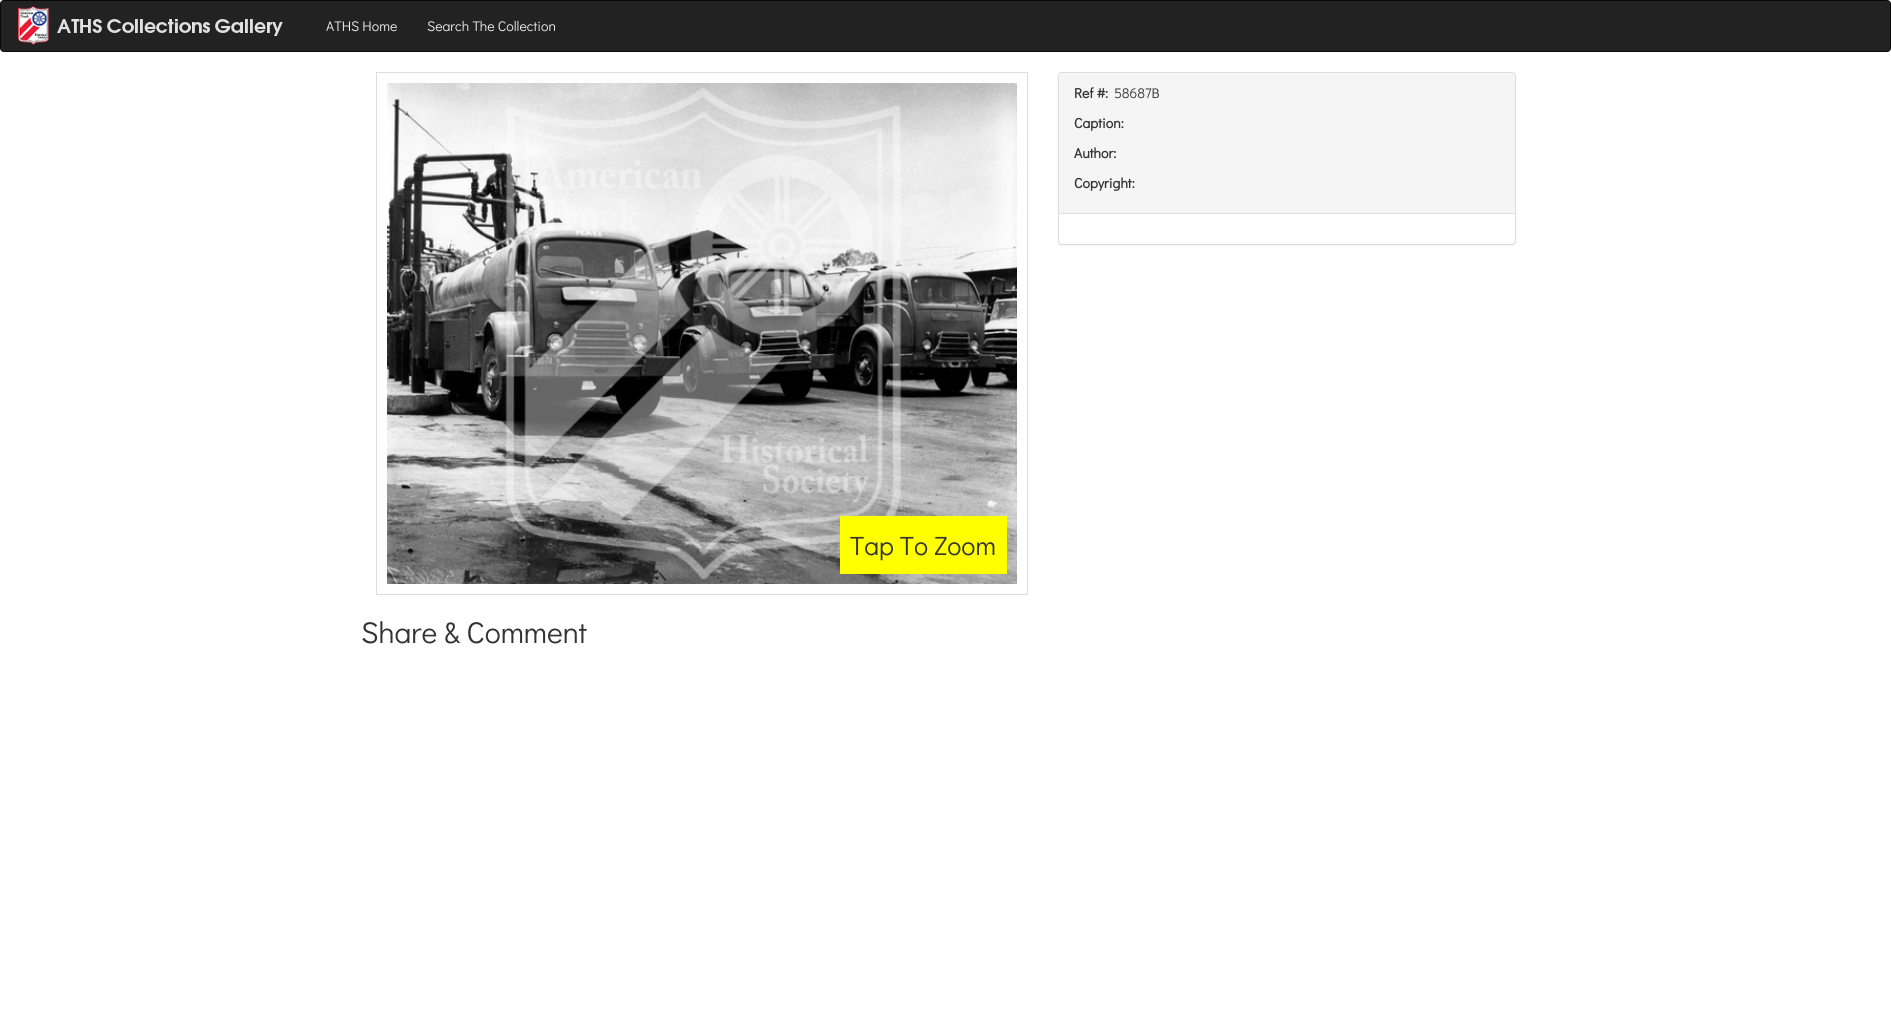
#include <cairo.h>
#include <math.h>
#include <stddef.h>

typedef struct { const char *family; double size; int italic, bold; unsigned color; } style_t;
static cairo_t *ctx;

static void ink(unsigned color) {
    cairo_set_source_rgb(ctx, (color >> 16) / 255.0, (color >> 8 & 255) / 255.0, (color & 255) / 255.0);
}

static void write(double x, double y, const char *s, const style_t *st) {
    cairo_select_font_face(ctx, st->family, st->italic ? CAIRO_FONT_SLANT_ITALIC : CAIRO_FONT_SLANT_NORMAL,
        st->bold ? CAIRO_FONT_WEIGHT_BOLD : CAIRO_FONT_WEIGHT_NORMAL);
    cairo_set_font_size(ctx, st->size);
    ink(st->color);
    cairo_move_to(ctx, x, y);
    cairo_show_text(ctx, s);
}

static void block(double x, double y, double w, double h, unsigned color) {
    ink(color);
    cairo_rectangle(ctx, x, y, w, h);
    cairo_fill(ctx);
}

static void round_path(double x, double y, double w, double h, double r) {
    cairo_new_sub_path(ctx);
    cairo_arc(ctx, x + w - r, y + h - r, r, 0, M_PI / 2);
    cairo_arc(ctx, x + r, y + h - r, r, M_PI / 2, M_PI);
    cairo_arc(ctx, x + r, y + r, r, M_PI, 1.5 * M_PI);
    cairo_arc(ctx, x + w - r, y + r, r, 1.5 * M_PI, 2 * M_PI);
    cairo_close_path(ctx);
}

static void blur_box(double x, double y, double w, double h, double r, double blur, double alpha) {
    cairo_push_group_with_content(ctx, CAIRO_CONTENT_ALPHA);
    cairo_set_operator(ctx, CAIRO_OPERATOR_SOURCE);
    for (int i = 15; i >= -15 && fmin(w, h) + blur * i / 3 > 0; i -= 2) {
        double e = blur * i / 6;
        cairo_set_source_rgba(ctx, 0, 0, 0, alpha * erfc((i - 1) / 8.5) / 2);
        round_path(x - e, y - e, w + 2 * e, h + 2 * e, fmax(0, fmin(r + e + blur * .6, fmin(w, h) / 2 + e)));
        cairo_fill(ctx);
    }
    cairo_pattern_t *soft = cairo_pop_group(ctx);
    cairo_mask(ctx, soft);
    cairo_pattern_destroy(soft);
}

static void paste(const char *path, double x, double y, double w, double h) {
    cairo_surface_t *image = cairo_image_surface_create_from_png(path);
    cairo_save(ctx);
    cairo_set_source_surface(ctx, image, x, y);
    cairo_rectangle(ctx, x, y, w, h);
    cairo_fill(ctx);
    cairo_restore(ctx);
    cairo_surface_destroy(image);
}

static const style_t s1 = {"Didact Gothic", 14, 0, 0, 0xeeeeee};
static const style_t s2 = {"Didact Gothic", 14, 0, 1, 0x333333};
static const style_t s3 = {"Didact Gothic", 14, 0, 0, 0x333333};
static const style_t s4 = {"Didact Gothic", 26.5, 0, 0, 0x333333};
static const style_t s5 = {"Didact Gothic", 30, 0, 0, 0x333333};

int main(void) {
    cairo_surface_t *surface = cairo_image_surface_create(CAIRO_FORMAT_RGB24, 1891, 1032);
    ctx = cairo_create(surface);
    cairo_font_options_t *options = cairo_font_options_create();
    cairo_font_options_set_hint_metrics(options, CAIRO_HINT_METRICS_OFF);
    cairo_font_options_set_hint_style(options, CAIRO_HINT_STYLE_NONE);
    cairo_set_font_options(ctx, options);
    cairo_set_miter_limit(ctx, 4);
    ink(0xffffff);
    cairo_paint(ctx);
    ink(0x222222);
    round_path(0.5, 0.5, 1890, 51, 3.5);
    cairo_fill_preserve(ctx);
    ink(0x080808);
    cairo_set_line_width(ctx, 1);
    cairo_stroke(ctx);
    paste("pic1.png", 18, 6, 265, 39);
    write(326, 31, "ATHS Home", &s1);
    write(427, 31, "Search The Collection", &s1);
    ink(0x000000);
    blur_box(1058, 73, 458, 173, 4, 0.5, 0.05);
    ink(0xffffff);
    round_path(1058.5, 72.5, 457, 172, 3.5);
    cairo_fill_preserve(ctx);
    ink(0xdddddd);
    cairo_stroke(ctx);
    ink(0xf5f5f5);
    cairo_new_path(ctx);
    cairo_move_to(ctx, 1062, 73);
    cairo_line_to(ctx, 1512, 73);
    cairo_curve_to(ctx, 1513.5, 73, 1515, 74.5, 1515, 76);
    cairo_line_to(ctx, 1515, 214);
    cairo_line_to(ctx, 1059, 214);
    cairo_line_to(ctx, 1059, 76);
    cairo_curve_to(ctx, 1059, 74.5, 1060.5, 73, 1062, 73);
    cairo_close_path(ctx);
    cairo_fill(ctx);
    block(1059, 213, 456, 1, 0xdddddd);
    write(1074, 98, "Ref #:", &s2);
    write(1114, 98, "58687B", &s3);
    write(1074, 128, "Caption:", &s2);
    write(1074, 158, "Author:", &s2);
    write(1074, 188, "Copyright:", &s2);
    cairo_rectangle(ctx, 376.5, 72.5, 651, 522);
    ink(0xdddddd);
    cairo_stroke(ctx);
    paste("pic2.png", 387, 83, 630, 501);
    block(840, 516, 167, 58, 0xffff00);
    write(850, 555, "Tap To Zoom", &s4);
    write(361, 643, "Share & Comment", &s5);
    cairo_surface_write_to_png(surface, "screenshot.png");
    cairo_font_options_destroy(options);
    cairo_destroy(ctx);
    cairo_surface_destroy(surface);
    return 0;
}
